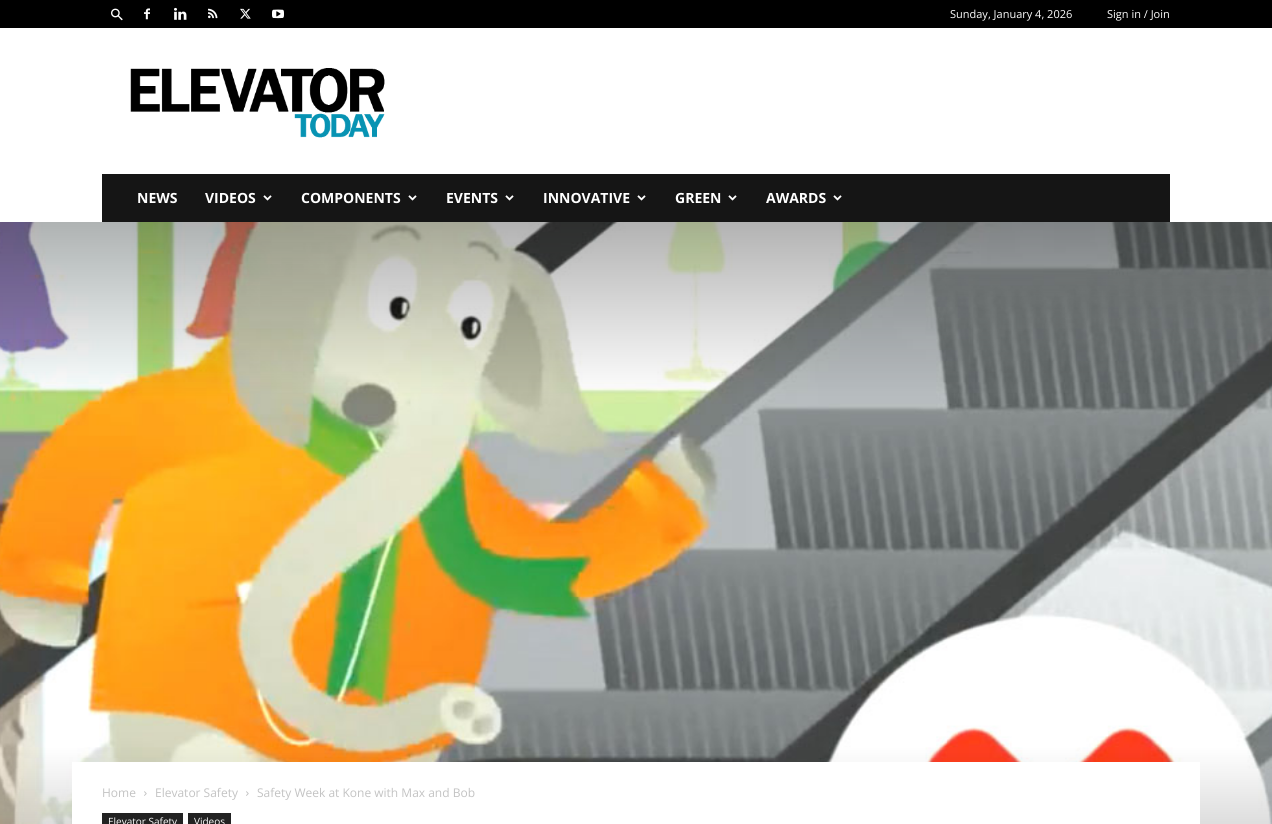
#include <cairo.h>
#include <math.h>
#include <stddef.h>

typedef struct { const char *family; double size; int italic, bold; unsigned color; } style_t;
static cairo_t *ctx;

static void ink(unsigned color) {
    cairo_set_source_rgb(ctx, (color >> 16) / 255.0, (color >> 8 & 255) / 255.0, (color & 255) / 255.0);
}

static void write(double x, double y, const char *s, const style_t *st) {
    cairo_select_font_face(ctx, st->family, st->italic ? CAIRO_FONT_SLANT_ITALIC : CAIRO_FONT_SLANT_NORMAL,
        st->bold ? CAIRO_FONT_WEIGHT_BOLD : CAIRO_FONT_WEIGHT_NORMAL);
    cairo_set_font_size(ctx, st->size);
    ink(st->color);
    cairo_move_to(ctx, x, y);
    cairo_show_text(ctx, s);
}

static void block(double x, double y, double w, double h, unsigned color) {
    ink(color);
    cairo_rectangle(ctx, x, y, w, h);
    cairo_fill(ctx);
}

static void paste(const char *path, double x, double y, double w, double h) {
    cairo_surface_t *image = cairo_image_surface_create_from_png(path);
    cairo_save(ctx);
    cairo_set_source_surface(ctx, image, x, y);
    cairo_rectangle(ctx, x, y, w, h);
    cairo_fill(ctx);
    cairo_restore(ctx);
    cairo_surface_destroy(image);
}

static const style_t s1 = {"Open Sans", 11, 0, 0, 0xffffff};
static const style_t s2 = {"Open Sans", 14, 0, 1, 0xffffff};
static const style_t s3 = {"Open Sans", 12, 0, 0, 0xc3c3c3};
static const style_t s4 = {"Open Sans", 10, 0, 0, 0xffffff};

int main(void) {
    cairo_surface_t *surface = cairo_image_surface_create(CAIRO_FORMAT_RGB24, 1272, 824);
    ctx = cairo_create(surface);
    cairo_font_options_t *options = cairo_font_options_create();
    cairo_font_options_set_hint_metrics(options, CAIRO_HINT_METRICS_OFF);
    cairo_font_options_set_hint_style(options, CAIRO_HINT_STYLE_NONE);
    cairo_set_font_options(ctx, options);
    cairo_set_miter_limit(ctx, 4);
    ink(0xffffff);
    cairo_paint(ctx);
    block(0, 0, 1272, 28, 0x000000);
    paste("pic1.png", 111, 8, 12, 13);
    paste("pic2.png", 144, 8, 6, 12);
    paste("pic3.png", 174, 7, 13, 13);
    paste("pic4.png", 208, 8, 10, 11);
    paste("pic5.png", 240, 8, 11, 11);
    paste("pic6.png", 272, 9, 12, 10);
    write(950, 18, "Sunday, January 4, 2026", &s1);
    write(1107, 18, "Sign in / Join", &s1);
    paste("pic7.png", 130, 68, 255, 70);
    block(102, 174, 1068, 48, 0x151515);
    write(137, 203, "NEWS", &s2);
    write(205, 203, "VIDEOS", &s2);
    paste("pic8.png", 263, 195, 9, 6);
    write(301, 203, "COMPONENTS", &s2);
    paste("pic8.png", 408, 195, 9, 6);
    write(446, 203, "EVENTS", &s2);
    paste("pic8.png", 505, 195, 9, 6);
    write(543, 203, "INNOVATIVE", &s2);
    paste("pic8.png", 637, 195, 9, 6);
    write(675, 203, "GREEN", &s2);
    paste("pic8.png", 728, 195, 9, 6);
    write(766, 203, "AWARDS", &s2);
    paste("pic8.png", 833, 195, 9, 6);
    paste("pic9.png", 0, 222, 1272, 602);
    block(72, 762, 1128, 62, 0xffffff);
    write(102, 797, "Home", &s3);
    paste("pic10.png", 144, 791, 3, 5);
    write(155, 797, "Elevator Safety", &s3);
    paste("pic10.png", 246, 791, 3, 5);
    write(257, 797, "Safety Week at Kone with Max and Bob", &s3);
    block(102, 813, 81, 11, 0x222222);
    write(108, 825, "Elevator Safety", &s4);
    block(188, 813, 43, 11, 0x222222);
    write(194, 825, "Videos", &s4);
    cairo_surface_write_to_png(surface, "screenshot.png");
    cairo_font_options_destroy(options);
    cairo_destroy(ctx);
    cairo_surface_destroy(surface);
    return 0;
}
